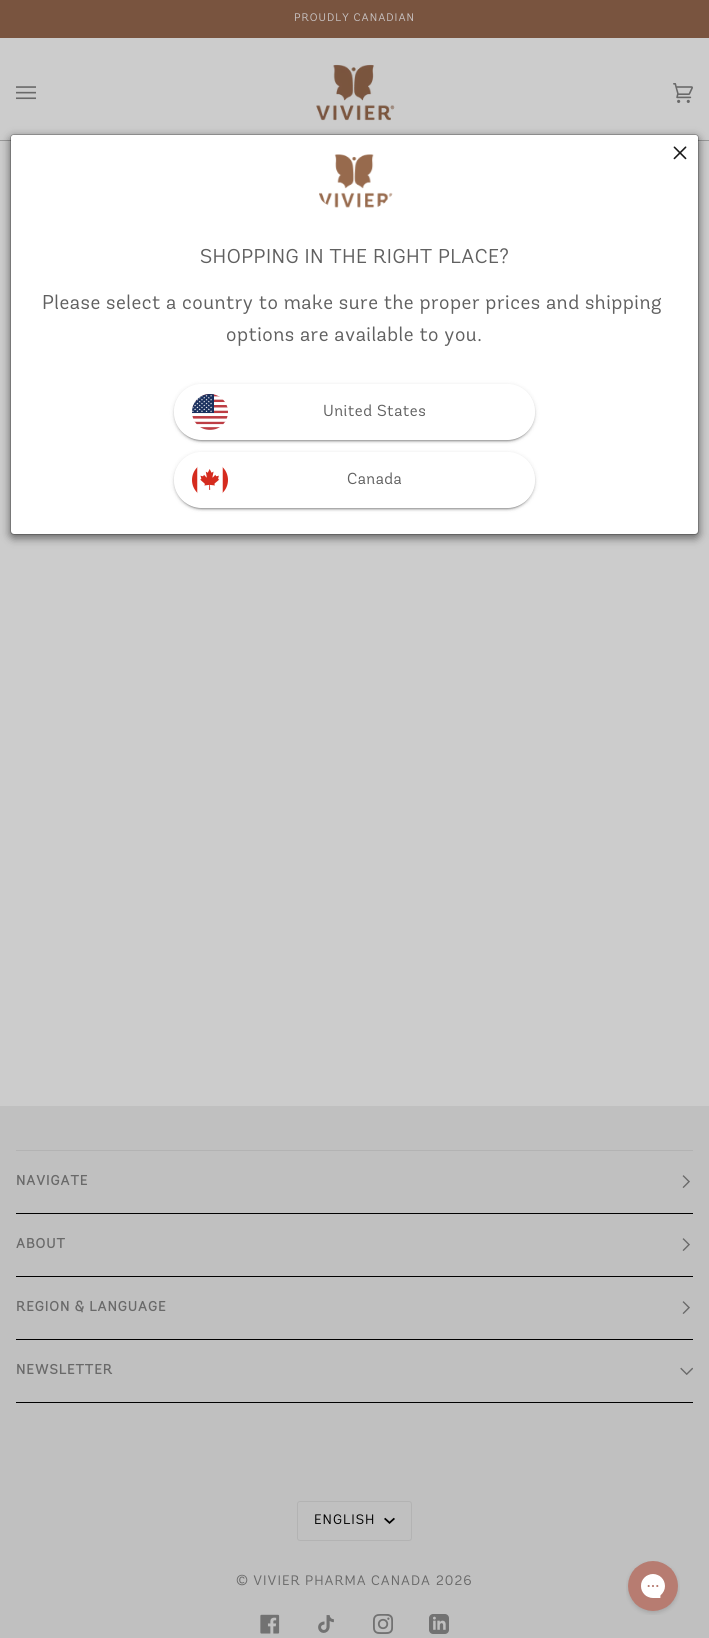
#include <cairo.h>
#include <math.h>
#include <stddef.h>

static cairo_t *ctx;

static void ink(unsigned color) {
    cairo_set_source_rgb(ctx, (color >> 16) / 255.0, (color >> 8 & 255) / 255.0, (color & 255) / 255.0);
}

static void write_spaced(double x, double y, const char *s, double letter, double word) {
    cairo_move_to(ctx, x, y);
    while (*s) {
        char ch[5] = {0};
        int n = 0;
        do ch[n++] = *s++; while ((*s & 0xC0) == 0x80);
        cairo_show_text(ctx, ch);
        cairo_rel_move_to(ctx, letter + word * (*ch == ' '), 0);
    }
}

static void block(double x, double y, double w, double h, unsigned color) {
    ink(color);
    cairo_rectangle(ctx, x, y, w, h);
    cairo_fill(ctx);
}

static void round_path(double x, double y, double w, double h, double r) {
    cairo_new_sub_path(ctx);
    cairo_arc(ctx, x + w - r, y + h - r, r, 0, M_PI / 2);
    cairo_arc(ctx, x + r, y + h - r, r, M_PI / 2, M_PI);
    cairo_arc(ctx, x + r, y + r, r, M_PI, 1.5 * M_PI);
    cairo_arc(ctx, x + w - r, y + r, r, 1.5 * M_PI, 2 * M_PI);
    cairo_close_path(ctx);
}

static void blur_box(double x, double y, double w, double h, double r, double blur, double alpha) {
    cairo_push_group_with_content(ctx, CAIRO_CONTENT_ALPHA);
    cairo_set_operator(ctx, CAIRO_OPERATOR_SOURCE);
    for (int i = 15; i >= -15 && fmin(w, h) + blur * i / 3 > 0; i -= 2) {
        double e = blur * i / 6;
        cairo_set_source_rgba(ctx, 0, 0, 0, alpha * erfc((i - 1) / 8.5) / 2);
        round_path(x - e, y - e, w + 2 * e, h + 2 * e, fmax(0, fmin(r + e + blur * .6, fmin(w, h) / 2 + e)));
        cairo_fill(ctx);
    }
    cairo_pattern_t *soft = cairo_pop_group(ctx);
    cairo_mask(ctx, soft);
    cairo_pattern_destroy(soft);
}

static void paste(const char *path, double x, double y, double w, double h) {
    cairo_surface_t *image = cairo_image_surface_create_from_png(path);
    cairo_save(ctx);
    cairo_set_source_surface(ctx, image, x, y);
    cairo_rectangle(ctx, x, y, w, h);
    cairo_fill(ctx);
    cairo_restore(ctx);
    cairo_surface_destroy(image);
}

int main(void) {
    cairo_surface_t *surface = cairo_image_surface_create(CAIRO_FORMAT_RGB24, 709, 1638);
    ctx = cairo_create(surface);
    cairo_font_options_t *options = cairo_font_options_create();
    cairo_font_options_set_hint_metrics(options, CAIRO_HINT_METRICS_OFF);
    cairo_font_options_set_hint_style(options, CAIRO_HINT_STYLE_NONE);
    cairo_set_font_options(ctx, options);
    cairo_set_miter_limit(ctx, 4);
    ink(0xcccccc);
    cairo_paint(ctx);
    block(0, 0, 709, 38, 0x79543f);
    cairo_select_font_face(ctx, "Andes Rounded", CAIRO_FONT_SLANT_NORMAL, CAIRO_FONT_WEIGHT_NORMAL);
    cairo_set_font_size(ctx, 11);
    ink(0xc8c3c3);
    write_spaced(294, 21, "PROUDLY CANADIAN", 1, 0);
    block(0, 140, 709, 1, 0x999999);
    paste("pic1.png", 16, 86, 20, 14);
    paste("pic2.png", 316, 64, 79, 57);
    paste("pic3.png", 673, 83, 20, 20);
    ink(0x000000);
    blur_box(10, 137, 689, 401, 4, 4.5, 0.5);
    ink(0xffffff);
    round_path(11, 135, 687, 399, 3);
    cairo_fill(ctx);
    round_path(10.5, 134.5, 688, 400, 3.5);
    cairo_set_source_rgba(ctx, 0, 0, 0, 0.2);
    cairo_set_line_width(ctx, 1);
    cairo_stroke(ctx);
    ink(0xffffff);
    cairo_new_path(ctx);
    cairo_move_to(ctx, 14, 135);
    cairo_line_to(ctx, 695, 135);
    cairo_curve_to(ctx, 696.5, 135, 698, 136.5, 698, 138);
    cairo_line_to(ctx, 698, 238);
    cairo_line_to(ctx, 11, 238);
    cairo_line_to(ctx, 11, 138);
    cairo_curve_to(ctx, 11, 136.5, 12.5, 135, 14, 135);
    cairo_close_path(ctx);
    cairo_fill(ctx);
    paste("pic4.png", 319, 154, 74, 54);
    paste("pic5.png", 673, 146, 14, 14);
    cairo_set_font_size(ctx, 20);
    ink(0x606060);
    write_spaced(200, 263, "SHOPPING IN THE RIGHT PLACE?", 0.5, 0);
    write_spaced(42, 309, "Please select a country to make sure the proper prices and shipping", 0.5, 0);
    write_spaced(226, 341, "options are available to you.", 0.5, 0);
    cairo_save(ctx);
    cairo_set_fill_rule(ctx, CAIRO_FILL_RULE_EVEN_ODD);
    cairo_new_path(ctx);
    cairo_move_to(ctx, 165, 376);
    cairo_line_to(ctx, 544, 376);
    cairo_line_to(ctx, 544, 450);
    cairo_line_to(ctx, 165, 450);
    cairo_close_path(ctx);
    cairo_move_to(ctx, 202, 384);
    cairo_line_to(ctx, 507, 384);
    cairo_curve_to(ctx, 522.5, 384, 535, 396.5, 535, 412);
    cairo_curve_to(ctx, 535, 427.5, 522.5, 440, 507, 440);
    cairo_line_to(ctx, 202, 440);
    cairo_curve_to(ctx, 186.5, 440, 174, 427.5, 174, 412);
    cairo_curve_to(ctx, 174, 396.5, 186.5, 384, 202, 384);
    cairo_close_path(ctx);
    cairo_clip(ctx);
    ink(0x000000);
    blur_box(174, 385, 361, 56, 28, 2.5, 0.12);
    cairo_restore(ctx);
    cairo_save(ctx);
    cairo_set_fill_rule(ctx, CAIRO_FILL_RULE_EVEN_ODD);
    cairo_new_path(ctx);
    cairo_move_to(ctx, 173, 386);
    cairo_line_to(ctx, 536, 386);
    cairo_line_to(ctx, 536, 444);
    cairo_line_to(ctx, 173, 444);
    cairo_close_path(ctx);
    cairo_move_to(ctx, 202, 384);
    cairo_line_to(ctx, 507, 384);
    cairo_curve_to(ctx, 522.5, 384, 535, 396.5, 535, 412);
    cairo_curve_to(ctx, 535, 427.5, 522.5, 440, 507, 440);
    cairo_line_to(ctx, 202, 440);
    cairo_curve_to(ctx, 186.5, 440, 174, 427.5, 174, 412);
    cairo_curve_to(ctx, 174, 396.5, 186.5, 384, 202, 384);
    cairo_close_path(ctx);
    cairo_clip(ctx);
    ink(0x000000);
    blur_box(176, 389, 357, 52, 26, 0.5, 0.2);
    cairo_restore(ctx);
    cairo_save(ctx);
    cairo_set_fill_rule(ctx, CAIRO_FILL_RULE_EVEN_ODD);
    cairo_new_path(ctx);
    cairo_move_to(ctx, 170, 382);
    cairo_line_to(ctx, 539, 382);
    cairo_line_to(ctx, 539, 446);
    cairo_line_to(ctx, 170, 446);
    cairo_close_path(ctx);
    cairo_move_to(ctx, 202, 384);
    cairo_line_to(ctx, 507, 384);
    cairo_curve_to(ctx, 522.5, 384, 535, 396.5, 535, 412);
    cairo_curve_to(ctx, 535, 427.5, 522.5, 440, 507, 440);
    cairo_line_to(ctx, 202, 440);
    cairo_curve_to(ctx, 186.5, 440, 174, 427.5, 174, 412);
    cairo_curve_to(ctx, 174, 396.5, 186.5, 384, 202, 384);
    cairo_close_path(ctx);
    cairo_clip(ctx);
    ink(0x000000);
    blur_box(174, 386, 361, 56, 28, 1, 0.14);
    cairo_restore(ctx);
    paste("pic6.png", 192, 394, 36, 36);
    cairo_set_font_size(ctx, 16);
    write_spaced(323, 416, "United States", 0.5, 0);
    cairo_save(ctx);
    cairo_set_fill_rule(ctx, CAIRO_FILL_RULE_EVEN_ODD);
    cairo_new_path(ctx);
    cairo_move_to(ctx, 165, 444);
    cairo_line_to(ctx, 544, 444);
    cairo_line_to(ctx, 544, 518);
    cairo_line_to(ctx, 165, 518);
    cairo_close_path(ctx);
    cairo_move_to(ctx, 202, 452);
    cairo_line_to(ctx, 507, 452);
    cairo_curve_to(ctx, 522.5, 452, 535, 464.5, 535, 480);
    cairo_curve_to(ctx, 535, 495.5, 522.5, 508, 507, 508);
    cairo_line_to(ctx, 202, 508);
    cairo_curve_to(ctx, 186.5, 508, 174, 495.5, 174, 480);
    cairo_curve_to(ctx, 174, 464.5, 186.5, 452, 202, 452);
    cairo_close_path(ctx);
    cairo_clip(ctx);
    ink(0x000000);
    blur_box(174, 453, 361, 56, 28, 2.5, 0.12);
    cairo_restore(ctx);
    cairo_save(ctx);
    cairo_set_fill_rule(ctx, CAIRO_FILL_RULE_EVEN_ODD);
    cairo_new_path(ctx);
    cairo_move_to(ctx, 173, 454);
    cairo_line_to(ctx, 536, 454);
    cairo_line_to(ctx, 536, 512);
    cairo_line_to(ctx, 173, 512);
    cairo_close_path(ctx);
    cairo_move_to(ctx, 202, 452);
    cairo_line_to(ctx, 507, 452);
    cairo_curve_to(ctx, 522.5, 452, 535, 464.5, 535, 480);
    cairo_curve_to(ctx, 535, 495.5, 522.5, 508, 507, 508);
    cairo_line_to(ctx, 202, 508);
    cairo_curve_to(ctx, 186.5, 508, 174, 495.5, 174, 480);
    cairo_curve_to(ctx, 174, 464.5, 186.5, 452, 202, 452);
    cairo_close_path(ctx);
    cairo_clip(ctx);
    ink(0x000000);
    blur_box(176, 457, 357, 52, 26, 0.5, 0.2);
    cairo_restore(ctx);
    cairo_save(ctx);
    cairo_set_fill_rule(ctx, CAIRO_FILL_RULE_EVEN_ODD);
    cairo_new_path(ctx);
    cairo_move_to(ctx, 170, 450);
    cairo_line_to(ctx, 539, 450);
    cairo_line_to(ctx, 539, 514);
    cairo_line_to(ctx, 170, 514);
    cairo_close_path(ctx);
    cairo_move_to(ctx, 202, 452);
    cairo_line_to(ctx, 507, 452);
    cairo_curve_to(ctx, 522.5, 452, 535, 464.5, 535, 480);
    cairo_curve_to(ctx, 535, 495.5, 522.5, 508, 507, 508);
    cairo_line_to(ctx, 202, 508);
    cairo_curve_to(ctx, 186.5, 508, 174, 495.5, 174, 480);
    cairo_curve_to(ctx, 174, 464.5, 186.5, 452, 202, 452);
    cairo_close_path(ctx);
    cairo_clip(ctx);
    ink(0x000000);
    blur_box(174, 454, 361, 56, 28, 1, 0.14);
    cairo_restore(ctx);
    paste("pic7.png", 192, 466, 36, 28);
    write_spaced(347, 484, "Canada", 0.5, 0);
    block(0, 1106, 709, 532, 0xc0c0c0);
    block(16, 1150, 677, 1, 0xb3b3b3);
    block(16, 1213, 677, 1, 0x000000);
    cairo_select_font_face(ctx, "Andes Rounded", CAIRO_FONT_SLANT_NORMAL, CAIRO_FONT_WEIGHT_BOLD);
    cairo_set_font_size(ctx, 13.75);
    ink(0x696969);
    write_spaced(16, 1185, "NAVIGATE", 1, 0);
    paste("pic8.png", 682, 1175, 8, 13);
    block(16, 1276, 677, 1, 0x000000);
    ink(0x696969);
    write_spaced(16, 1248, "ABOUT", 1, 0);
    paste("pic8.png", 682, 1238, 8, 13);
    block(16, 1339, 677, 1, 0x000000);
    ink(0x696969);
    write_spaced(16, 1311, "REGION & LANGUAGE", 1, 0);
    paste("pic8.png", 682, 1301, 8, 13);
    block(16, 1402, 677, 1, 0x000000);
    ink(0x696969);
    write_spaced(16, 1374, "NEWSLETTER", 1, 0);
    paste("pic9.png", 680, 1367, 13, 8);
    round_path(297.5, 1501.5, 114, 39, 2.5);
    ink(0xb3b3b3);
    cairo_stroke(ctx);
    cairo_select_font_face(ctx, "Andes Rounded", CAIRO_FONT_SLANT_NORMAL, CAIRO_FONT_WEIGHT_NORMAL);
    ink(0x000000);
    write_spaced(314, 1524, "ENGLISH", 1, 0);
    paste("pic10.png", 384, 1517, 11, 7);
    ink(0x696969);
    write_spaced(236, 1585, "© VIVIER PHARMA CANADA", 1, 0);
    write_spaced(436, 1585, "2026", 1, 0);
    paste("pic11.png", 260, 1614, 20, 20);
    paste("pic12.png", 318, 1615, 16, 18);
    paste("pic13.png", 373, 1614, 20, 20);
    paste("pic14.png", 429, 1614, 20, 20);
    paste("pic15.png", 626, 1561, 54, 54);
    cairo_surface_write_to_png(surface, "screenshot.png");
    cairo_font_options_destroy(options);
    cairo_destroy(ctx);
    cairo_surface_destroy(surface);
    return 0;
}
